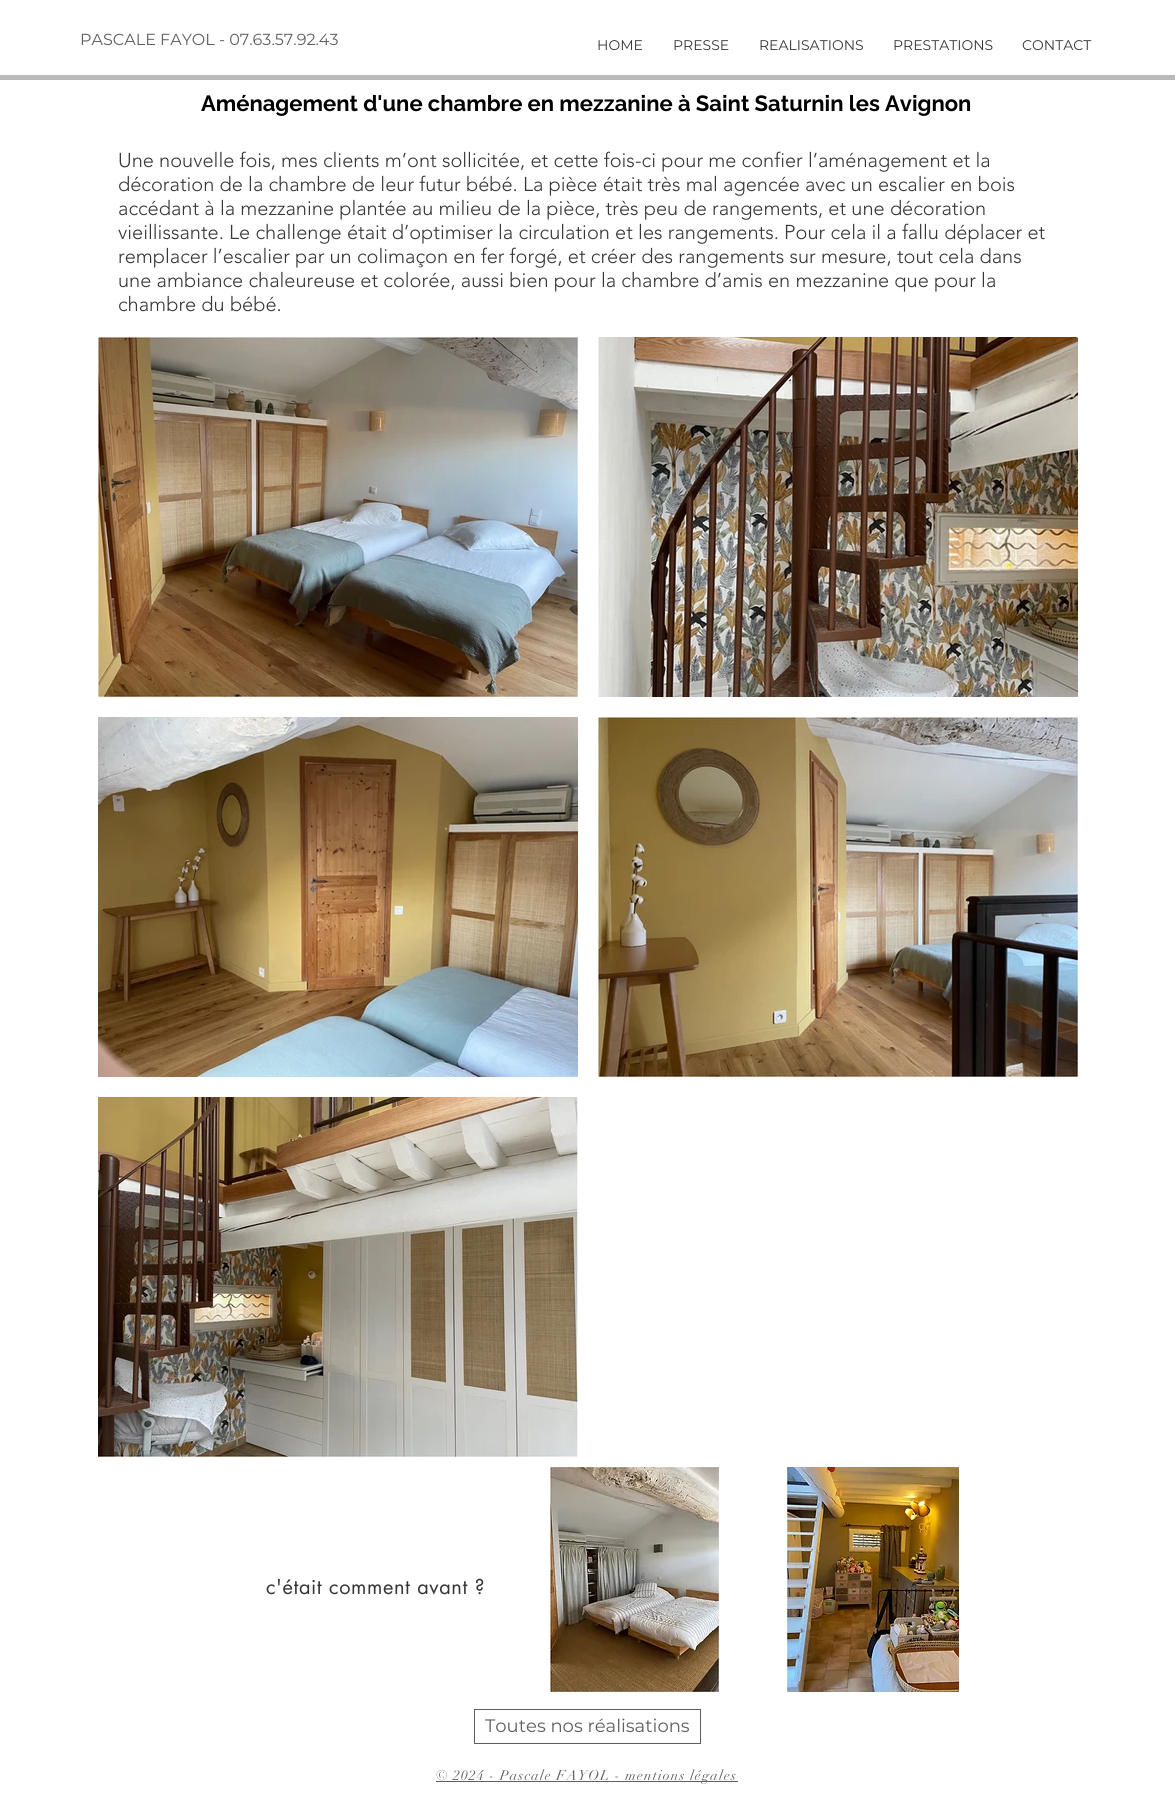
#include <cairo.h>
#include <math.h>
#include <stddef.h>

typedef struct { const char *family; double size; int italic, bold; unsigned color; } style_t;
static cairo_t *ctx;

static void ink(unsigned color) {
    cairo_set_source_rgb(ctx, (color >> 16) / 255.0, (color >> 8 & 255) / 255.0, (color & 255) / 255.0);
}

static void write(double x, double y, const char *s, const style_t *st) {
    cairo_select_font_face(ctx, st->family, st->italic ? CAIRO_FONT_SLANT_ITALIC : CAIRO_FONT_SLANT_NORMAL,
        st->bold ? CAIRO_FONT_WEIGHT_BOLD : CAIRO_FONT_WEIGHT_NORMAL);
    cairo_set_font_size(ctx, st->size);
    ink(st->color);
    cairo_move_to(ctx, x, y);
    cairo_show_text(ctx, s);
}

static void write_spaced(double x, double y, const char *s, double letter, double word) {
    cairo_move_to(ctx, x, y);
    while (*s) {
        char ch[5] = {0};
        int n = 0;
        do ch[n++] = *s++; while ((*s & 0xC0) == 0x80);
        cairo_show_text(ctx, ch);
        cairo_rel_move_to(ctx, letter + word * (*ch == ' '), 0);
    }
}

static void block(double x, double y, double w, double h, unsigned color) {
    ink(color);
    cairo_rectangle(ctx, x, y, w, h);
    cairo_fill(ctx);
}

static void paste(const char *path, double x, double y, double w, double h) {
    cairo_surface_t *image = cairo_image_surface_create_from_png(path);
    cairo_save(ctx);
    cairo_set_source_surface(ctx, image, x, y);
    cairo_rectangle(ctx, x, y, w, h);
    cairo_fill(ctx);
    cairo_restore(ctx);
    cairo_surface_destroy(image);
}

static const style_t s1 = {"Montserrat", 16, 0, 0, 0x605e5e};
static const style_t s2 = {"Montserrat", 14, 0, 0, 0x363636};
static const style_t s3 = {"Raleway", 22, 0, 1, 0x000000};
static const style_t s4 = {"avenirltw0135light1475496 Light", 20, 0, 0, 0x363636};
static const style_t s5 = {"Montserrat", 18, 0, 0, 0x605e5e};

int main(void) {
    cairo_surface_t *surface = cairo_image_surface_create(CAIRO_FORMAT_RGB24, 1175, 1798);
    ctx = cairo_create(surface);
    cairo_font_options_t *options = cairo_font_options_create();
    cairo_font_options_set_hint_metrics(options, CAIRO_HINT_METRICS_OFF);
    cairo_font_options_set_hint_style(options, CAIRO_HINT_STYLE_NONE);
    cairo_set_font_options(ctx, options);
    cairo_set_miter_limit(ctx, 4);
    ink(0xffffff);
    cairo_paint(ctx);
    write(80, 45, "PASCALE FAYOL - 07.63.57.92.43", &s1);
    write(597, 50, "HOME", &s2);
    write(673, 50, "PRESSE", &s2);
    write(759, 50, "REALISATIONS", &s2);
    write(893, 50, "PRESTATIONS", &s2);
    write(1022, 50, "CONTACT", &s2);
    block(0, 75, 1175, 5, 0xbababa);
    write(201, 111, "Aménagement d'une chambre en mezzanine à Saint Saturnin les Avignon", &s3);
    write(118, 167, "Une nouvelle fois, mes clients m’ont sollicitée, et cette fois-ci pour me confier l’aménagement et la", &s4);
    write(118, 191, "décoration de la chambre de leur futur bébé. La pièce était très mal agencée avec un escalier en bois", &s4);
    write(118, 215, "accédant à la mezzanine plantée au milieu de la pièce, très peu de rangements, et une décoration", &s4);
    write(118, 239, "vieillissante. Le challenge était d’optimiser la circulation et les rangements. Pour cela il a fallu déplacer et", &s4);
    write(118, 263, "remplacer l’escalier par un colimaçon en fer forgé, et créer des rangements sur mesure, tout cela dans", &s4);
    write(118, 287, "une ambiance chaleureuse et colorée, aussi bien pour la chambre d’amis en mezzanine que pour la", &s4);
    write(118, 311, "chambre du bébé.", &s4);
    paste("pic1.png", 98, 337, 480, 360);
    paste("pic2.png", 598, 337, 480, 360);
    paste("pic3.png", 98, 717, 480, 360);
    paste("pic4.png", 598, 717, 480, 360);
    paste("pic5.png", 98, 1097, 480, 360);
    cairo_select_font_face(ctx, "futura", CAIRO_FONT_SLANT_NORMAL, CAIRO_FONT_WEIGHT_NORMAL);
    write_spaced(266, 1594, "c'était comment avant ?", 0.6, 0);
    paste("pic6.png", 550, 1467, 169, 225);
    paste("pic7.png", 787, 1467, 172, 225);
    cairo_rectangle(ctx, 474.5, 1709.5, 226, 34);
    ink(0x605e5e);
    cairo_set_line_width(ctx, 1);
    cairo_stroke(ctx);
    write(485, 1732, "Toutes nos réalisations", &s5);
    block(436, 1781, 302, 1, 0x605e5e);
    cairo_select_font_face(ctx, "didot", CAIRO_FONT_SLANT_NORMAL, CAIRO_FONT_WEIGHT_NORMAL);
    cairo_set_font_size(ctx, 14);
    write_spaced(436, 1780, "© 2024 - Pascale FAYOL - mentions légales", 1.1, 0);
    cairo_surface_write_to_png(surface, "screenshot.png");
    cairo_font_options_destroy(options);
    cairo_destroy(ctx);
    cairo_surface_destroy(surface);
    return 0;
}
